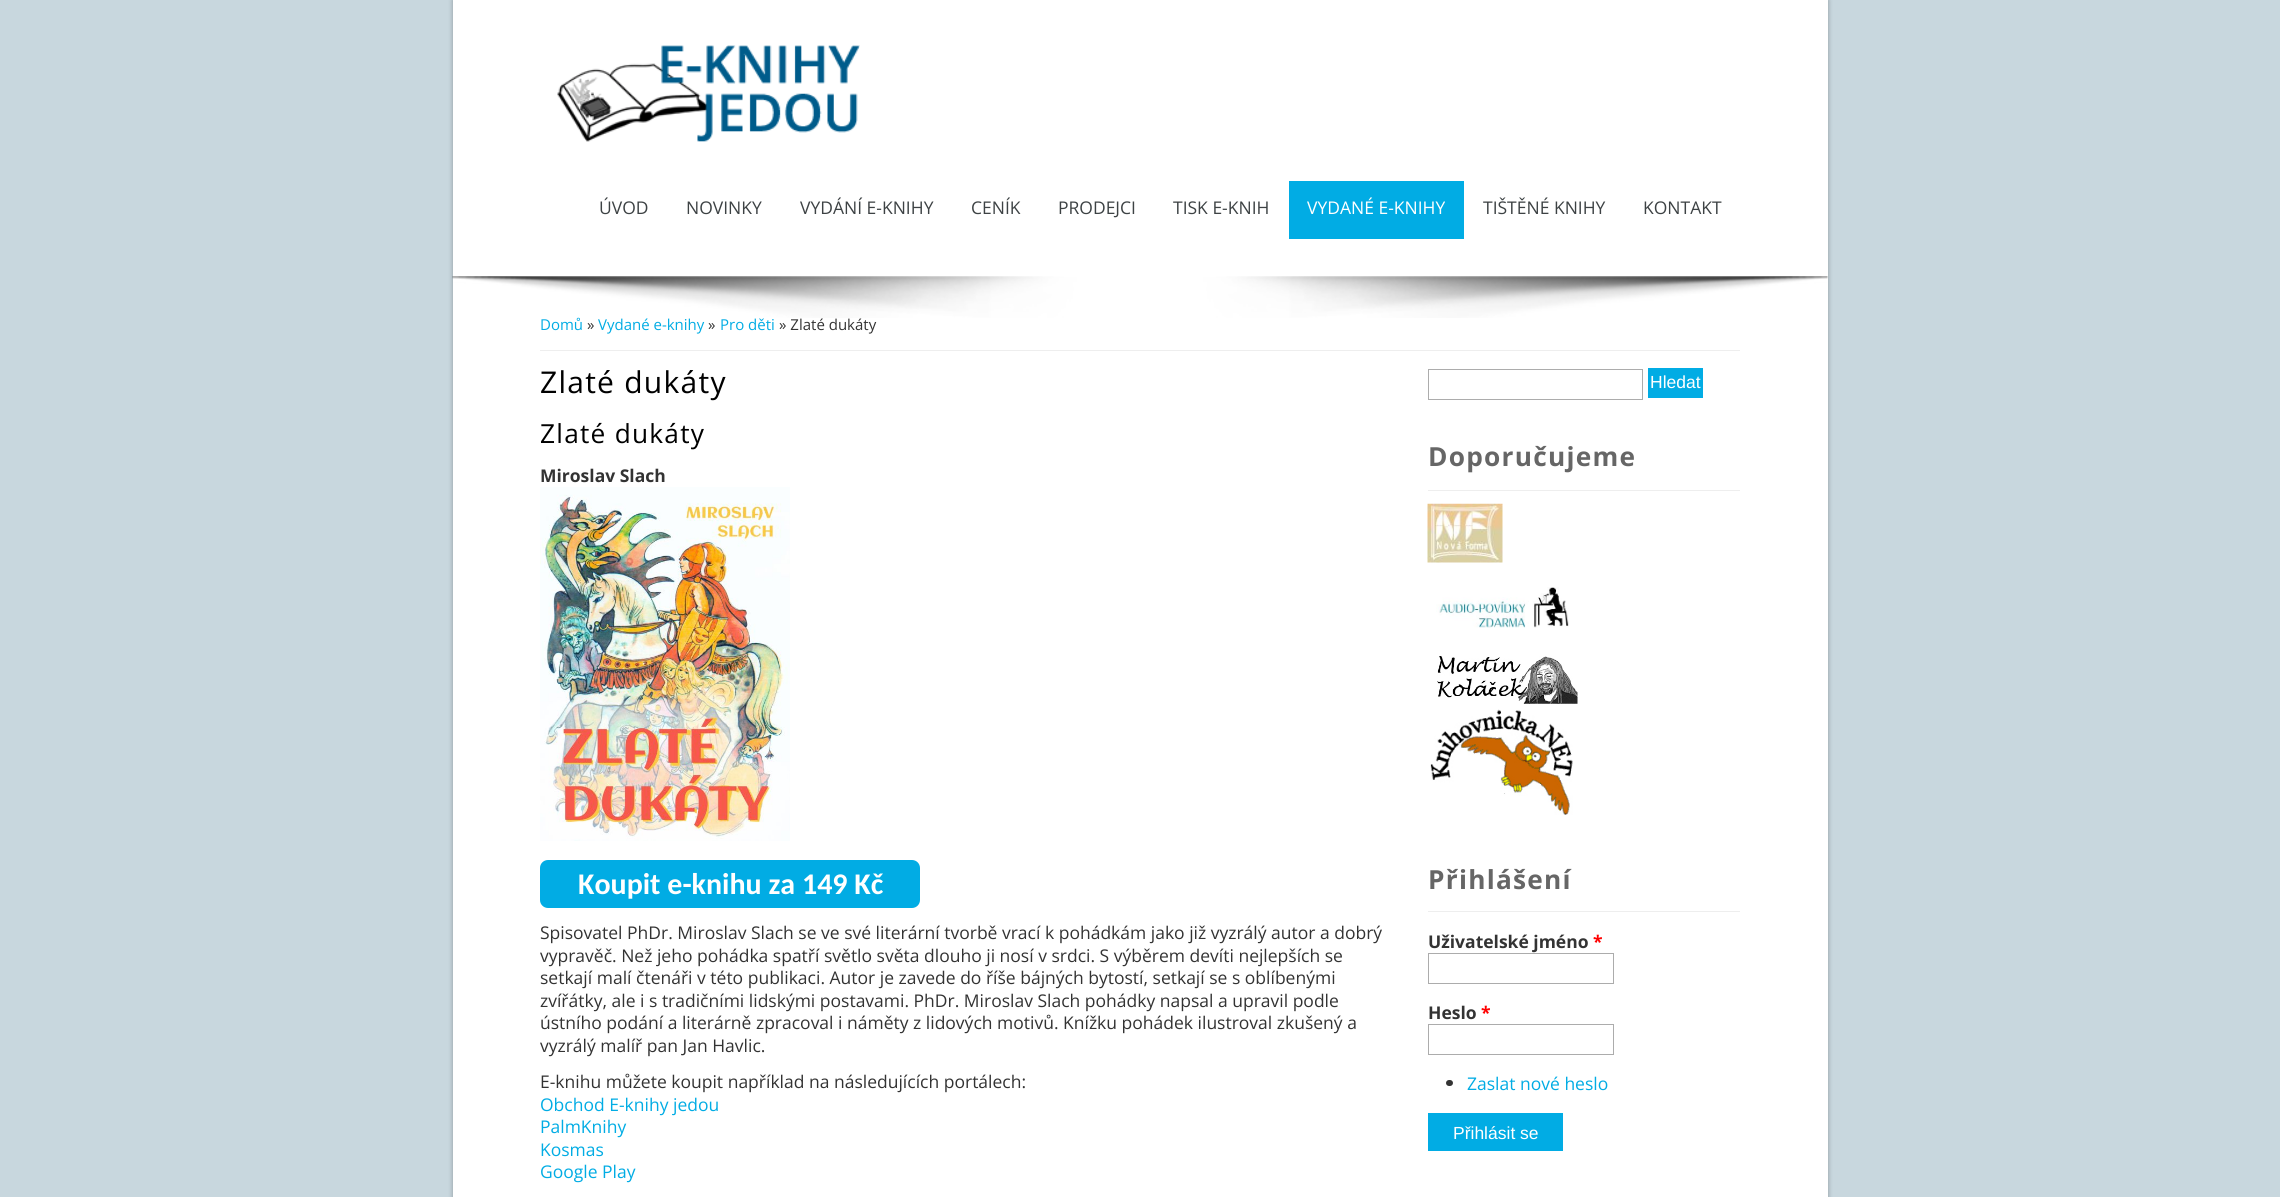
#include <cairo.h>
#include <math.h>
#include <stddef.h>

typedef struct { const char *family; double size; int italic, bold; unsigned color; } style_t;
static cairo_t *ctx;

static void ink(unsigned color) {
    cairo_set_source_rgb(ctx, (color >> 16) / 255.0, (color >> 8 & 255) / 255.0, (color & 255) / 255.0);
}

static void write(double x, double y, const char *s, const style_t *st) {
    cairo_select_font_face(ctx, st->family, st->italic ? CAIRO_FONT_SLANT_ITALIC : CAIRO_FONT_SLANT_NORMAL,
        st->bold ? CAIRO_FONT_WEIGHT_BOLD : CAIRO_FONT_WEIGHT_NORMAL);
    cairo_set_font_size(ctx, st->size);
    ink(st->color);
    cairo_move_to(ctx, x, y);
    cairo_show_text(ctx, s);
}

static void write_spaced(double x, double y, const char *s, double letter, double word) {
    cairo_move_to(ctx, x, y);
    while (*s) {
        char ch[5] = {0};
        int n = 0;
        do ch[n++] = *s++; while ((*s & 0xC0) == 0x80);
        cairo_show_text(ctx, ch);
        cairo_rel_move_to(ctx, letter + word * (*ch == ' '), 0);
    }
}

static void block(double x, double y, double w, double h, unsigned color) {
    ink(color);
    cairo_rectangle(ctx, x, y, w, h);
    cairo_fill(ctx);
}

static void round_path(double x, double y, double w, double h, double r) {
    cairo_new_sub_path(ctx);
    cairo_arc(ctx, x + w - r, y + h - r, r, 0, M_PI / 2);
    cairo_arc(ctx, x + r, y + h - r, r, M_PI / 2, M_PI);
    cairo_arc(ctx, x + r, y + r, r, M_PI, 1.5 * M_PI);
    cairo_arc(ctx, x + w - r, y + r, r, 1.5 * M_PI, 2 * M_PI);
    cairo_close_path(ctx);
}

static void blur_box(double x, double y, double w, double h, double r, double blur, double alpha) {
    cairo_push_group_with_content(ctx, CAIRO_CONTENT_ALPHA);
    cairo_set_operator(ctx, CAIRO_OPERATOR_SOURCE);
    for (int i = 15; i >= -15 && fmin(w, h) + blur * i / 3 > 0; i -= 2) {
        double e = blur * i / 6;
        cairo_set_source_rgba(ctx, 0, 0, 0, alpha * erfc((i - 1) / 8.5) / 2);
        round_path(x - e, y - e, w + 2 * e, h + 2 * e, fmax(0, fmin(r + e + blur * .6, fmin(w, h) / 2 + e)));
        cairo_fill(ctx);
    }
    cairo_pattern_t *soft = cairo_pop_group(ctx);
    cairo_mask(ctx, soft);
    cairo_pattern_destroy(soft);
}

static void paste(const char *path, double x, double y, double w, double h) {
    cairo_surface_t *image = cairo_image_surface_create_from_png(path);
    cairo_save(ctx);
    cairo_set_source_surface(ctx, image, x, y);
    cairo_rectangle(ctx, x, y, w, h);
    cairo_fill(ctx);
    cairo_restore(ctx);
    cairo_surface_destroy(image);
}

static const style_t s1 = {"Open Sans", 17.5, 0, 0, 0x3d4244};
static const style_t s2 = {"Open Sans", 17.5, 0, 0, 0xffffff};
static const style_t s3 = {"Open Sans", 15, 0, 0, 0x01ace4};
static const style_t s4 = {"Open Sans", 15, 0, 0, 0x333333};
static const style_t s5 = {"Open Sans", 17.5, 0, 1, 0x333333};
static const style_t s6 = {"Carlito", 30, 0, 1, 0xffffff};
static const style_t s7 = {"Open Sans", 17.5, 0, 0, 0x333333};
static const style_t s8 = {"Open Sans", 17.5, 0, 0, 0x01ace4};
static const style_t s9 = {"Liberation Sans", 17.5, 0, 0, 0xffffff};
static const style_t s10 = {"Open Sans", 17.5, 0, 1, 0xff0000};

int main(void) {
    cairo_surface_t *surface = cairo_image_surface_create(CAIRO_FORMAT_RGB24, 2280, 1197);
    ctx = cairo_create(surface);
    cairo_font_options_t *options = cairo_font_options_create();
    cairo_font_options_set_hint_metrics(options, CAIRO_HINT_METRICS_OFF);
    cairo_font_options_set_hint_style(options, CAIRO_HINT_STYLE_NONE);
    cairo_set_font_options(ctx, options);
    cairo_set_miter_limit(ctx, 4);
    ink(0xc8d7de);
    cairo_paint(ctx);
    ink(0x000000);
    blur_box(453, 0, 1375, 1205, 0, 2.5, 0.3);
    block(453, 0, 1375, 1197, 0xffffff);
    paste("pic1.png", 557, 45, 303, 97);
    write(599, 214, "ÚVOD", &s1);
    write(686, 214, "NOVINKY", &s1);
    write(800, 214, "VYDÁNÍ E-KNIHY", &s1);
    write(971, 214, "CENÍK", &s1);
    write(1058, 214, "PRODEJCI", &s1);
    write(1173, 214, "TISK E-KNIH", &s1);
    block(1289, 181, 175, 58, 0x01ace4);
    write(1307, 214, "VYDANÉ E-KNIHY", &s2);
    write(1483, 214, "TIŠTĚNÉ KNIHY", &s1);
    write(1643, 214, "KONTAKT", &s1);
    write(540, 330, "Domů", &s3);
    paste("pic2.png", 452, 276, 1376, 42);
    block(540, 350, 1200, 1, 0xeeeeee);
    write(587, 330, "»", &s4);
    write(598, 330, "Vydané e-knihy", &s3);
    write(708, 330, "»", &s4);
    write(720, 330, "Pro děti", &s3);
    write(779, 330, "» Zlaté dukáty", &s4);
    cairo_set_font_size(ctx, 30);
    ink(0x000000);
    write_spaced(540, 393, "Zlaté dukáty", 1.25, 0);
    cairo_set_font_size(ctx, 26.25);
    write_spaced(540, 443, "Zlaté dukáty", 1.25, 0);
    write(540, 482, "Miroslav Slach", &s5);
    paste("pic3.png", 540, 487, 250, 354);
    ink(0x01ace4);
    round_path(540, 860, 380, 48, 8);
    cairo_fill(ctx);
    write(578, 894, "Koupit e-knihu za 149 Kč", &s6);
    write(540, 939, "Spisovatel PhDr. Miroslav Slach se ve své literární tvorbě vrací k pohádkám jako již vyzrálý autor a dobrý", &s7);
    write(540, 962, "vypravěč. Než jeho pohádka spatří světlo světa dlouho ji nosí v srdci. S výběrem devíti nejlepších se", &s7);
    write(540, 984, "setkají malí čtenáři v této publikaci. Autor je zavede do říše bájných bytostí, setkají se s oblíbenými", &s7);
    write(540, 1007, "zvířátky, ale i s tradičními lidskými postavami. PhDr. Miroslav Slach pohádky napsal a upravil podle", &s7);
    write(540, 1029, "ústního podání a literárně zpracoval i náměty z lidových motivů. Knížku pohádek ilustroval zkušený a", &s7);
    write(540, 1052, "vyzrálý malíř pan Jan Havlic.", &s7);
    write(540, 1088, "E-knihu můžete koupit například na následujících portálech:", &s7);
    write(540, 1111, "Obchod E-knihy jedou", &s8);
    write(540, 1133, "PalmKnihy", &s8);
    write(540, 1156, "Kosmas", &s8);
    write(540, 1178, "Google Play", &s8);
    cairo_rectangle(ctx, 1428.5, 369.5, 214, 30);
    ink(0xacacac);
    cairo_set_line_width(ctx, 1);
    cairo_stroke(ctx);
    block(1648, 368, 55, 30, 0x01ace4);
    write(1650, 388, "Hledat", &s9);
    block(1428, 490, 312, 1, 0xeeeeee);
    cairo_select_font_face(ctx, "Open Sans", CAIRO_FONT_SLANT_NORMAL, CAIRO_FONT_WEIGHT_BOLD);
    cairo_set_font_size(ctx, 26.25);
    ink(0x666666);
    write_spaced(1428, 466, "Doporučujeme", 1.25, 0);
    paste("pic4.png", 1427, 503, 76, 60);
    paste("pic5.png", 1436, 587, 133, 41);
    paste("pic6.png", 1437, 656, 141, 48);
    paste("pic7.png", 1430, 709, 143, 106);
    block(1428, 911, 312, 1, 0xeeeeee);
    ink(0x666666);
    write_spaced(1428, 889, "Přihlášení", 1.25, 0);
    write(1428, 948, "Uživatelské jméno", &s5);
    write(1593, 948, "*", &s10);
    cairo_rectangle(ctx, 1428.5, 953.5, 185, 30);
    ink(0xacacac);
    cairo_stroke(ctx);
    write(1428, 1019, "Heslo", &s5);
    write(1481, 1019, "*", &s10);
    cairo_rectangle(ctx, 1428.5, 1024.5, 185, 30);
    ink(0xacacac);
    cairo_stroke(ctx);
    ink(0x333333);
    round_path(1446, 1080, 7, 6, 3);
    cairo_fill(ctx);
    write(1467, 1090, "Zaslat nové heslo", &s8);
    block(1428, 1113, 135, 38, 0x01ace4);
    write(1453, 1139, "Přihlásit se", &s9);
    cairo_surface_write_to_png(surface, "screenshot.png");
    cairo_font_options_destroy(options);
    cairo_destroy(ctx);
    cairo_surface_destroy(surface);
    return 0;
}
